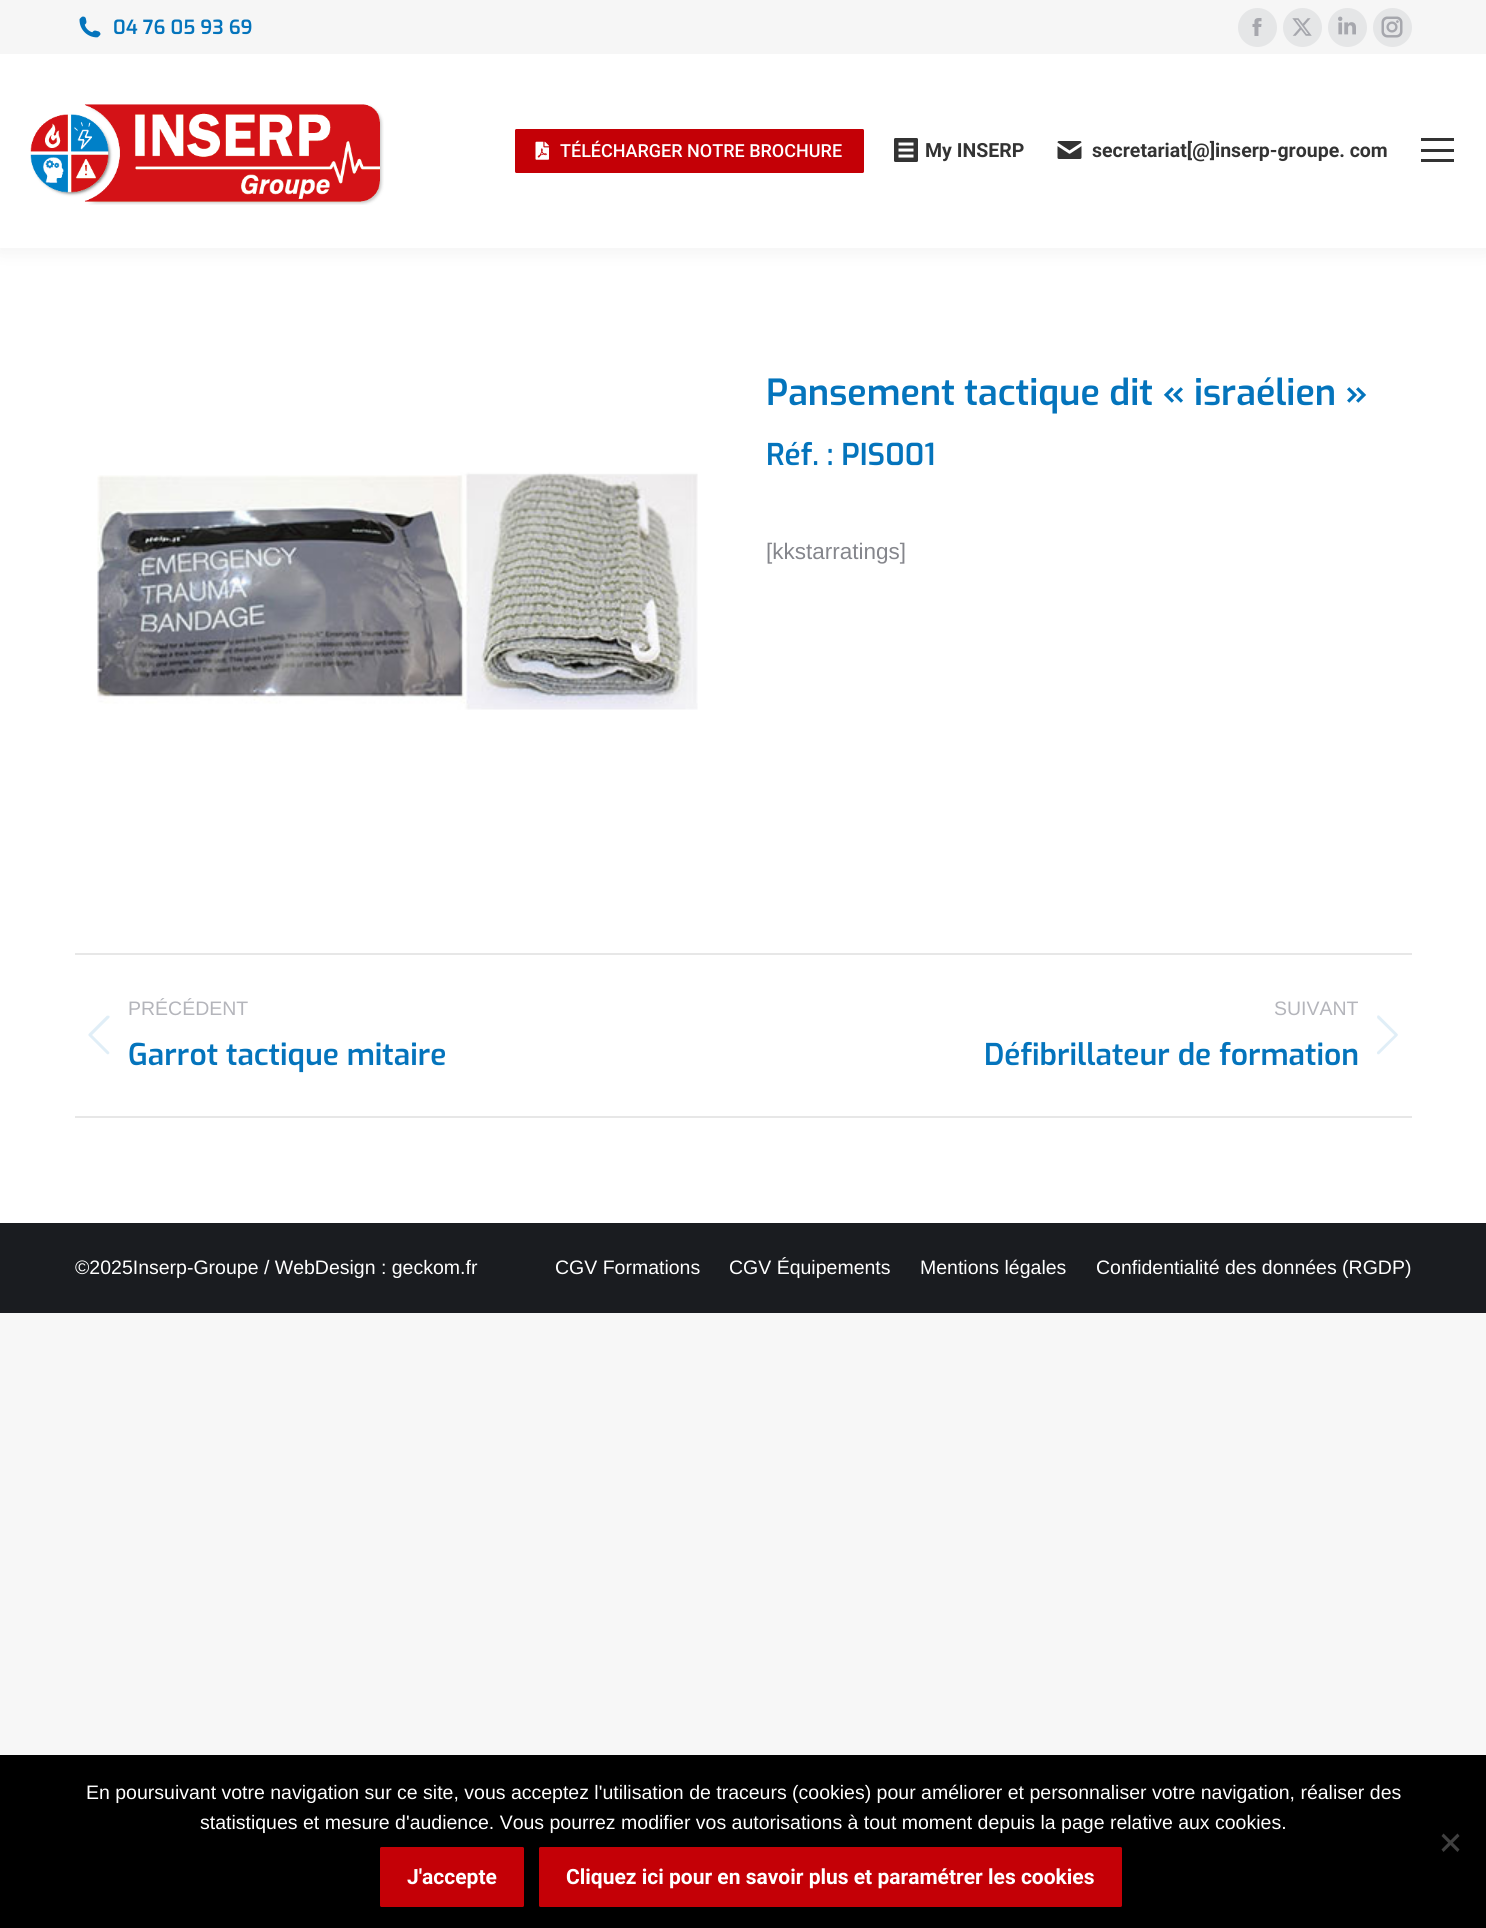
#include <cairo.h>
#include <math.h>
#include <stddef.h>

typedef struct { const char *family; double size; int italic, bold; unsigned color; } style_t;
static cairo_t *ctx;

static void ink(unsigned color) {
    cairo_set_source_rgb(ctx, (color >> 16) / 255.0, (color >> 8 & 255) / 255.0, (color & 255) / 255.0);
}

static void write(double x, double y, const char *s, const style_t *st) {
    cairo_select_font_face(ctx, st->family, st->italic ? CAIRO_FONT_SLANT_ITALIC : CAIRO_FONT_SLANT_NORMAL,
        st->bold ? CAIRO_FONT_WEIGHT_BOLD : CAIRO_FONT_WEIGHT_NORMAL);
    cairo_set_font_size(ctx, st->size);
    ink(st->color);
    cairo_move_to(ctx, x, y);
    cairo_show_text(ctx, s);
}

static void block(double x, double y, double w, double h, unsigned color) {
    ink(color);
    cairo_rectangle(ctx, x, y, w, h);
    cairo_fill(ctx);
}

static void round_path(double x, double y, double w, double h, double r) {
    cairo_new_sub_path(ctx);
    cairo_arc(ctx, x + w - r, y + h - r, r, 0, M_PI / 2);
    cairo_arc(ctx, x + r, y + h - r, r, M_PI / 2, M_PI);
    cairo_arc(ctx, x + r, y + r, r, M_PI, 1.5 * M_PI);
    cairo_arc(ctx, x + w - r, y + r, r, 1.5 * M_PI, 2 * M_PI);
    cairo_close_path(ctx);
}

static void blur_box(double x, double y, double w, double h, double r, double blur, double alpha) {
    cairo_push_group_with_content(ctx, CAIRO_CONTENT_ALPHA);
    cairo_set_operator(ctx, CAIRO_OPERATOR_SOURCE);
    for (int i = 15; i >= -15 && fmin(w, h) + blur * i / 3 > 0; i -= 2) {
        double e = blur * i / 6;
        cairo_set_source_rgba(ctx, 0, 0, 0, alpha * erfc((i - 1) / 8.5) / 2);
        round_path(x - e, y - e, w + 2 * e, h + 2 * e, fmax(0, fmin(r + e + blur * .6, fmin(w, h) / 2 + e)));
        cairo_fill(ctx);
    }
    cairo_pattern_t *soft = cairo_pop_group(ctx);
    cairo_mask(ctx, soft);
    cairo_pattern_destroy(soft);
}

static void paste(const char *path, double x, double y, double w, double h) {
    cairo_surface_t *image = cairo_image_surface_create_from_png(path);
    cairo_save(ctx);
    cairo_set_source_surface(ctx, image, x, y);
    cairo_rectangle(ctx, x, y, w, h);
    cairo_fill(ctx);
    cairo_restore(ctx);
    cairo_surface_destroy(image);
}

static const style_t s1 = {"Exo SemiBold", 19.5, 0, 0, 0x0474bc};
static const style_t s2 = {"Roboto Medium", 18, 0, 0, 0xffffff};
static const style_t s3 = {"Roboto", 19.5, 0, 1, 0x333333};
static const style_t s4 = {"Exo SemiBold", 36, 0, 0, 0x0474bc};
static const style_t s5 = {"Exo SemiBold", 30, 0, 0, 0x0474bc};
static const style_t s6 = {"Liberation Sans", 22.5, 0, 0, 0x85868c};
static const style_t s7 = {"Liberation Sans", 19.5, 0, 0, 0xb4b5bb};
static const style_t s8 = {"Liberation Sans", 19.5, 0, 0, 0xffffff};
static const style_t s9 = {"Roboto", 21, 0, 1, 0xffffff};

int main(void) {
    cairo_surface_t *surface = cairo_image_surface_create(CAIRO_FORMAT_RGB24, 1486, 1928);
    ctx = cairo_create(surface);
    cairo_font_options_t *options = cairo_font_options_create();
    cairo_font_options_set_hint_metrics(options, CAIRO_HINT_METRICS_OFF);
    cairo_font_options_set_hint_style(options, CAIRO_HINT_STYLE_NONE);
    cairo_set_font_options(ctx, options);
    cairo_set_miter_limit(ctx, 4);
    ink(0xf7f7f7);
    cairo_paint(ctx);
    block(0, 248, 1486, 975, 0xffffff);
    ink(0x000000);
    blur_box(-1, -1, 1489, 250, 0, 11, 0.07);
    block(0, 54, 1486, 194, 0xffffff);
    block(0, 0, 1486, 54, 0xf6f6f6);
    paste("pic1.png", 79, 16, 22, 22);
    write(113, 34, "04 76 05 93 69", &s1);
    ink(0xe5e6e7);
    cairo_new_path(ctx);
    cairo_arc(ctx, 1257.5, 27.5, 19.5, 0, 2 * M_PI);
    cairo_fill(ctx);
    paste("pic2.png", 1252, 18, 10, 18);
    cairo_arc(ctx, 1302.5, 27.5, 19.5, 0, 2 * M_PI);
    cairo_fill(ctx);
    paste("pic3.png", 1292, 18, 20, 18);
    cairo_arc(ctx, 1347.5, 27.5, 19.5, 0, 2 * M_PI);
    cairo_fill(ctx);
    paste("pic4.png", 1338, 16, 18, 19);
    cairo_arc(ctx, 1392.5, 27.5, 19.5, 0, 2 * M_PI);
    cairo_fill(ctx);
    paste("pic5.png", 1381, 16, 22, 22);
    paste("pic6.png", 30, 104, 354, 101);
    ink(0xc40006);
    round_path(515, 129, 349, 44, 1.5);
    cairo_fill(ctx);
    paste("pic7.png", 535, 141, 14, 19);
    write(560, 157, "TÉLÉCHARGER NOTRE BROCHURE", &s2);
    paste("pic8.png", 894, 138, 24, 24);
    write(925, 157, "My INSERP", &s3);
    paste("pic9.png", 1057, 141, 25, 18);
    write(1092, 157, "secretariat[@]inserp-groupe. com", &s3);
    block(1421, 138, 33, 3, 0x333333);
    block(1421, 149, 33, 3, 0x333333);
    block(1421, 159, 33, 3, 0x333333);
    paste("pic10.png", 97, 472, 601, 238);
    write(766, 405, "Pansement tactique dit « israélien »", &s4);
    write(766, 465, "Réf. : PIS001", &s5);
    write(766, 559, "[kkstarratings]", &s6);
    block(75, 953, 1337, 2, 0xe7e7e7);
    block(75, 1116, 1337, 2, 0xe7e7e7);
    write(128, 1015, "PRÉCÉDENT", &s7);
    paste("pic11.png", 88, 1015, 22, 40);
    write(128, 1065, "Garrot tactique mitaire", &s5);
    write(1274, 1015, "SUIVANT", &s7);
    write(984, 1065, "Défibrillateur de formation", &s5);
    paste("pic12.png", 1377, 1015, 21, 40);
    block(0, 1223, 1486, 90, 0x1a1c20);
    write(75, 1274, "©2025Inserp-Groupe / WebDesign : geckom.fr", &s8);
    write(555, 1274, "CGV Formations", &s8);
    write(729, 1274, "CGV Équipements", &s8);
    write(920, 1274, "Mentions légales", &s8);
    write(1096, 1274, "Confidentialité des données (RGDP)", &s8);
    block(0, 1755, 1486, 173, 0x000000);
    write(86, 1799, "En poursuivant votre navigation sur ce site, vous acceptez l'utilisation de traceurs (cookies) pour améliorer et personnaliser votre navigation, réaliser des", &s8);
    write(200, 1829, "statistiques et mesure d'audience. Vous pourrez modifier vos autorisations à tout moment depuis la page relative aux cookies.", &s8);
    ink(0x404040);
    cairo_new_path(ctx);
    cairo_move_to(ctx, 1457.5, 1833.5);
    cairo_line_to(ctx, 1459.5, 1836);
    cairo_line_to(ctx, 1443.5, 1852);
    cairo_line_to(ctx, 1441.5, 1849.5);
    cairo_close_path(ctx);
    cairo_fill(ctx);
    cairo_new_path(ctx);
    cairo_move_to(ctx, 1441.5, 1836);
    cairo_line_to(ctx, 1443.5, 1833.5);
    cairo_line_to(ctx, 1459.5, 1849.5);
    cairo_line_to(ctx, 1457.5, 1852);
    cairo_close_path(ctx);
    cairo_fill(ctx);
    ink(0xc40006);
    round_path(380, 1847, 144, 60, 1.5);
    cairo_fill(ctx);
    write(407, 1884, "J'accepte", &s9);
    ink(0xc40006);
    round_path(539, 1847, 583, 60, 1.5);
    cairo_fill(ctx);
    write(566, 1884, "Cliquez ici pour en savoir plus et paramétrer les cookies", &s9);
    cairo_surface_write_to_png(surface, "screenshot.png");
    cairo_font_options_destroy(options);
    cairo_destroy(ctx);
    cairo_surface_destroy(surface);
    return 0;
}
